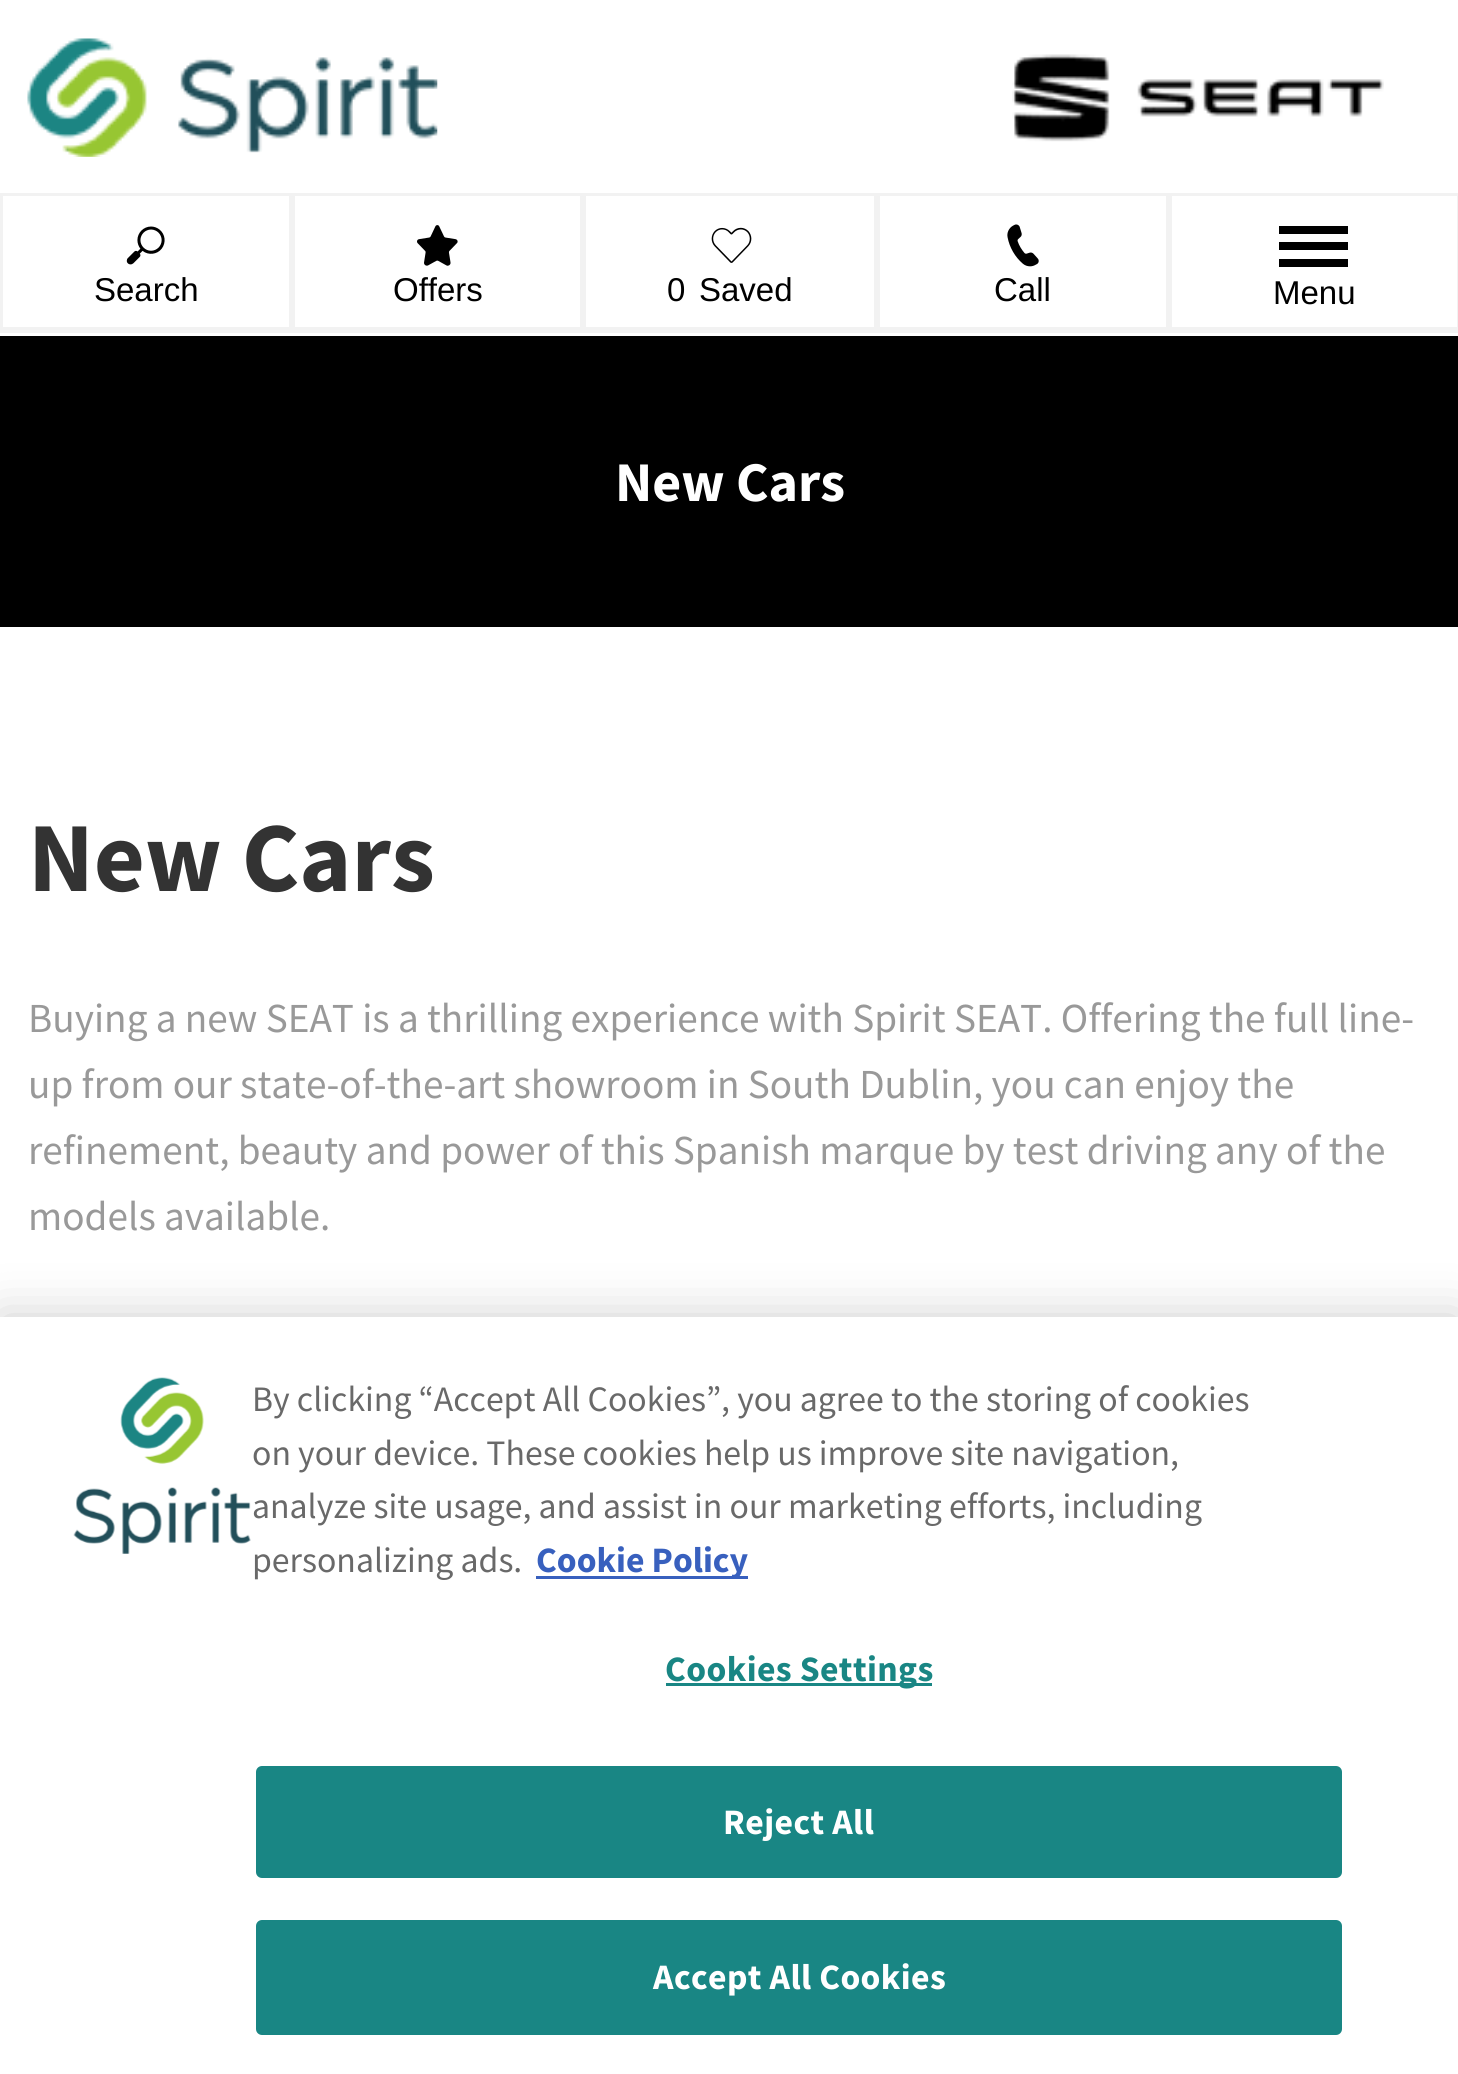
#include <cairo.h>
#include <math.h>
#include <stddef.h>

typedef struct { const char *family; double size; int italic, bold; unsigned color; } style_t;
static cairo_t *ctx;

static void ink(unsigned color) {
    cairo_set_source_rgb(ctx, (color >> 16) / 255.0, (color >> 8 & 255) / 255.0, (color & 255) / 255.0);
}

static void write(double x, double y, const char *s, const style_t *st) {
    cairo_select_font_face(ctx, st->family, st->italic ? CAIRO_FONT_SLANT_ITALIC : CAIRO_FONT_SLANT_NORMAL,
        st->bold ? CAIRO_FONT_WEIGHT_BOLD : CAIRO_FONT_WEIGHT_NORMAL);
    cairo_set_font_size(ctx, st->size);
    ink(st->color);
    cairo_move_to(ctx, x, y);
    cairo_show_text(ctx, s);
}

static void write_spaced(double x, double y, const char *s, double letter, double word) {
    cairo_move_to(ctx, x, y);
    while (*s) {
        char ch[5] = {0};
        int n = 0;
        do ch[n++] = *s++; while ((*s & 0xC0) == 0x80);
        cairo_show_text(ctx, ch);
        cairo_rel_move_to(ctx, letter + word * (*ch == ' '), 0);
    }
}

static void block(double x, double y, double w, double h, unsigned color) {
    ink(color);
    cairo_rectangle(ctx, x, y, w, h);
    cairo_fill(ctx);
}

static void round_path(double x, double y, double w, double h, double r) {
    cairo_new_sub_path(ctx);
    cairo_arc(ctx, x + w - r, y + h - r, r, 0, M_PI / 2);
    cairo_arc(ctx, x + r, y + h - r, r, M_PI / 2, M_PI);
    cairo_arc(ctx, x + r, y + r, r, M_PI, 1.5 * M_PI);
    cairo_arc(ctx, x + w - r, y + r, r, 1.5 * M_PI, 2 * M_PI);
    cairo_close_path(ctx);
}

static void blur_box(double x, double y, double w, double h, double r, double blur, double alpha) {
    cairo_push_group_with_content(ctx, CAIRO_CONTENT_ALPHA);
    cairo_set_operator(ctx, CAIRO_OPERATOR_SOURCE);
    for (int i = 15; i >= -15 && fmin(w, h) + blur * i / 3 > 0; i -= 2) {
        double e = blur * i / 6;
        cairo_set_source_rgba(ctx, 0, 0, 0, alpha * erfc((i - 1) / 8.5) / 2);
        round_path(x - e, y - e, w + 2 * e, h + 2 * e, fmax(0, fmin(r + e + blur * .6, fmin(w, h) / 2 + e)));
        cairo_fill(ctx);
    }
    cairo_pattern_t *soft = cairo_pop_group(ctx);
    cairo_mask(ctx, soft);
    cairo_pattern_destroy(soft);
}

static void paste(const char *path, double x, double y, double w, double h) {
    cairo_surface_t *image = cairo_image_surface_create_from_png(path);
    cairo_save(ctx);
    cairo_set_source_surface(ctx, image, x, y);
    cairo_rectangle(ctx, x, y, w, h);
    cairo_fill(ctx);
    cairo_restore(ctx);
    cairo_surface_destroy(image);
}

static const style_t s1 = {"Liberation Sans", 33, 0, 0, 0x000000};
static const style_t s2 = {"Source Sans Pro", 56, 0, 1, 0xffffff};
static const style_t s3 = {"Source Sans Pro", 99, 0, 1, 0x333333};
static const style_t s4 = {"Source Sans Pro", 41.25, 0, 0, 0x999999};
static const style_t s5 = {"Source Sans Pro", 35.75, 0, 0, 0x696969};
static const style_t s6 = {"Source Sans Pro", 35.75, 0, 1, 0x3860be};

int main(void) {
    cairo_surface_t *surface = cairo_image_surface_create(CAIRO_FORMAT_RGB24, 1458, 2074);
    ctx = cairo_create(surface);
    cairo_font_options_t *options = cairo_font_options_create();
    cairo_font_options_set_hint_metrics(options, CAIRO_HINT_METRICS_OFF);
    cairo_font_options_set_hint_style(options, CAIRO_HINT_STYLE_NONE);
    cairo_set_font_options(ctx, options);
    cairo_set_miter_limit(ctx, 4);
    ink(0xffffff);
    cairo_paint(ctx);
    paste("pic1.png", 27, 38, 411, 119);
    paste("pic2.png", 1012, 54, 372, 88);
    cairo_rectangle(ctx, 1.5, 194.5, 289, 134);
    ink(0xf2f2f2);
    cairo_set_line_width(ctx, 3);
    cairo_stroke(ctx);
    paste("pic3.png", 126, 226, 39, 39);
    write(94, 301, "Search", &s1);
    cairo_rectangle(ctx, 293.5, 194.5, 288, 134);
    ink(0xf2f2f2);
    cairo_stroke(ctx);
    paste("pic4.png", 417, 225, 41, 41);
    write(393, 301, "Offers", &s1);
    cairo_rectangle(ctx, 584.5, 194.5, 291, 134);
    ink(0xf2f2f2);
    cairo_stroke(ctx);
    paste("pic5.png", 711, 227, 41, 36);
    write(667, 301, "0", &s1);
    write(699, 301, "Saved", &s1);
    cairo_rectangle(ctx, 878.5, 194.5, 289, 134);
    ink(0xf2f2f2);
    cairo_stroke(ctx);
    paste("pic6.png", 1007, 224, 32, 43);
    write(994, 301, "Call", &s1);
    cairo_rectangle(ctx, 1170.5, 194.5, 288, 134);
    ink(0xf2f2f2);
    cairo_stroke(ctx);
    block(1279, 259, 69, 8, 0x000000);
    block(1279, 226, 69, 8, 0x000000);
    block(1279, 242, 69, 8, 0x000000);
    write(1273, 304, "Menu", &s1);
    block(0, 330, 1458, 3, 0xf2f2f2);
    block(0, 336, 1458, 291, 0x000000);
    write(615, 501, "New Cars", &s2);
    write(28, 891, "New Cars", &s3);
    write(28, 1032, "Buying a new SEAT is a thrilling experience with Spirit SEAT. Offering the full line-", &s4);
    write(28, 1098, "up from our state-of-the-art showroom in South Dublin, you can enjoy the", &s4);
    write(28, 1164, "refinement, beauty and power of this Spanish marque by test driving any of the", &s4);
    write(28, 1230, "models available.", &s4);
    ink(0x000000);
    blur_box(0, 1317, 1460, 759, 0, 25, 0.2);
    block(0, 1317, 1458, 757, 0xffffff);
    paste("pic7.png", 73, 1377, 178, 177);
    write(252, 1411, "By clicking “Accept All Cookies”, you agree to the storing of cookies", &s5);
    write(252, 1465, "on your device. These cookies help us improve site navigation,", &s5);
    write(252, 1518, "analyze site usage, and assist in our marketing efforts, including", &s5);
    write(252, 1572, "personalizing ads.", &s5);
    block(536, 1576, 212, 3, 0x3860be);
    write(536, 1572, "Cookie Policy", &s6);
    block(666, 1683, 266, 3, 0x198684);
    write_spaced(665, 1681, "Cookies Settings", 0.4, 0);
    round_path(257.5, 1767.5, 1083, 109, 4.5);
    cairo_fill_preserve(ctx);
    cairo_stroke(ctx);
    ink(0xffffff);
    write_spaced(723, 1834, "Reject All", 0.4, 0);
    ink(0x198684);
    round_path(257.5, 1921.5, 1083, 112, 4.5);
    cairo_fill_preserve(ctx);
    cairo_stroke(ctx);
    ink(0xffffff);
    write_spaced(653, 1989, "Accept All Cookies", 0.4, 0);
    cairo_surface_write_to_png(surface, "screenshot.png");
    cairo_font_options_destroy(options);
    cairo_destroy(ctx);
    cairo_surface_destroy(surface);
    return 0;
}
